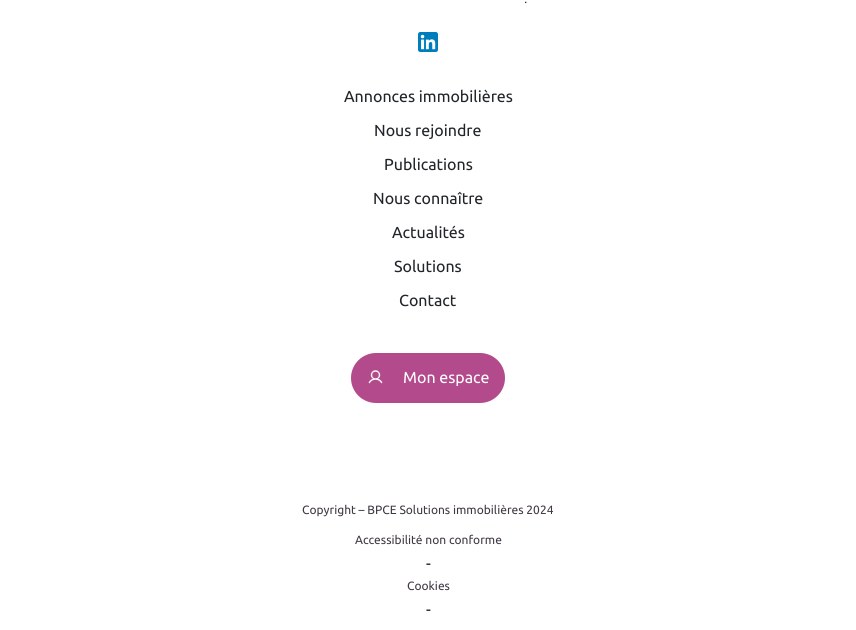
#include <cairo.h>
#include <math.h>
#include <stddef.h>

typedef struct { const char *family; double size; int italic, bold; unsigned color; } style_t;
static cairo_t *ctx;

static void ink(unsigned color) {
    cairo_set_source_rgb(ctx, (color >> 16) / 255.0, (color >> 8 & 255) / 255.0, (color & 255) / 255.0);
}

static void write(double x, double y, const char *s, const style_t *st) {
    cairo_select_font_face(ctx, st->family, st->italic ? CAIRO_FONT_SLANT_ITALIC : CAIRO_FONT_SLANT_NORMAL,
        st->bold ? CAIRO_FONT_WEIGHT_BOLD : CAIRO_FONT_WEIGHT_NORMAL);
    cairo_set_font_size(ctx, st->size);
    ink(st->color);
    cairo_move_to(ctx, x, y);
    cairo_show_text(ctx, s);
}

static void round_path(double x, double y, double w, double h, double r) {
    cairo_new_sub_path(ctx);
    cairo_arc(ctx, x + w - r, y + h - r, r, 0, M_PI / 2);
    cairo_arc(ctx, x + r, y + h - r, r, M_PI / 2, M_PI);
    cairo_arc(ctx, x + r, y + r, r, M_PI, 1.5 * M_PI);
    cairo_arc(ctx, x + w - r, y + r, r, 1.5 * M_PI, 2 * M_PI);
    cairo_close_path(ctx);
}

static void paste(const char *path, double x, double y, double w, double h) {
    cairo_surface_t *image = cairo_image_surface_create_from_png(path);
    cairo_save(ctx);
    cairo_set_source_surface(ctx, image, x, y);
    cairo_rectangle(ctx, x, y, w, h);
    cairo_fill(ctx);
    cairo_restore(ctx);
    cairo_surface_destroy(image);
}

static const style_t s1 = {"Ubuntu Light", 14, 0, 0, 0x212529};
static const style_t s2 = {"Ubuntu", 16, 0, 0, 0x212529};
static const style_t s3 = {"Ubuntu", 16, 0, 0, 0xffffff};
static const style_t s4 = {"Ubuntu", 12, 0, 0, 0x403844};

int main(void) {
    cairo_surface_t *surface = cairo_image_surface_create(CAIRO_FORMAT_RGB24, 856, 630);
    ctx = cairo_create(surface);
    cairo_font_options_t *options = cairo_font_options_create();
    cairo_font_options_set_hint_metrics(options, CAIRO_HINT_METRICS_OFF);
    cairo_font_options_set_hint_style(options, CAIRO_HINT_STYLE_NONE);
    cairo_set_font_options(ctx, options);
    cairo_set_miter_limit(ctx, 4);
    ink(0xffffff);
    cairo_paint(ctx);
    write(524, 3, ".", &s1);
    paste("pic1.png", 418, 32, 20, 20);
    write(344, 102, "Annonces immobilières", &s2);
    write(374, 136, "Nous rejoindre", &s2);
    write(384, 170, "Publications", &s2);
    write(373, 204, "Nous connaître", &s2);
    write(392, 238, "Actualités", &s2);
    write(394, 272, "Solutions", &s2);
    write(399, 306, "Contact", &s2);
    ink(0xb34a8c);
    round_path(351, 353, 154, 50, 25);
    cairo_fill(ctx);
    paste("pic2.png", 368, 370, 15, 14);
    write(403, 383, "Mon espace", &s3);
    write(302, 514, "Copyright – BPCE Solutions immobilières 2024", &s4);
    write(355, 544, "Accessibilité non conforme", &s4);
    write(426, 569, "-", &s2);
    write(407, 590, "Cookies", &s4);
    write(426, 615, "-", &s2);
    cairo_surface_write_to_png(surface, "screenshot.png");
    cairo_font_options_destroy(options);
    cairo_destroy(ctx);
    cairo_surface_destroy(surface);
    return 0;
}
